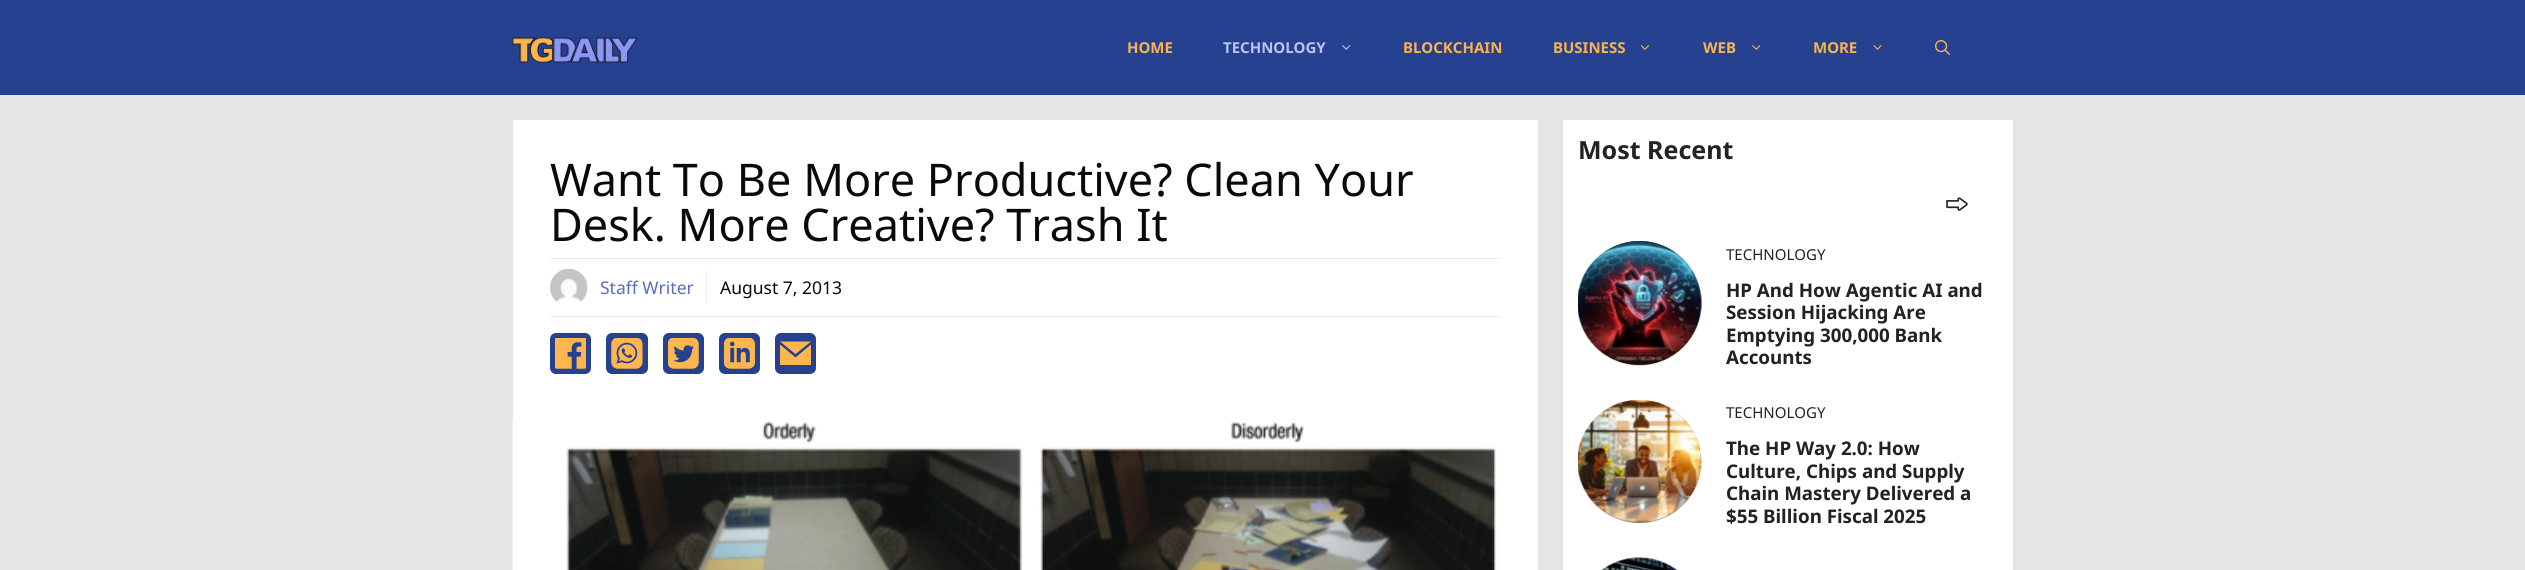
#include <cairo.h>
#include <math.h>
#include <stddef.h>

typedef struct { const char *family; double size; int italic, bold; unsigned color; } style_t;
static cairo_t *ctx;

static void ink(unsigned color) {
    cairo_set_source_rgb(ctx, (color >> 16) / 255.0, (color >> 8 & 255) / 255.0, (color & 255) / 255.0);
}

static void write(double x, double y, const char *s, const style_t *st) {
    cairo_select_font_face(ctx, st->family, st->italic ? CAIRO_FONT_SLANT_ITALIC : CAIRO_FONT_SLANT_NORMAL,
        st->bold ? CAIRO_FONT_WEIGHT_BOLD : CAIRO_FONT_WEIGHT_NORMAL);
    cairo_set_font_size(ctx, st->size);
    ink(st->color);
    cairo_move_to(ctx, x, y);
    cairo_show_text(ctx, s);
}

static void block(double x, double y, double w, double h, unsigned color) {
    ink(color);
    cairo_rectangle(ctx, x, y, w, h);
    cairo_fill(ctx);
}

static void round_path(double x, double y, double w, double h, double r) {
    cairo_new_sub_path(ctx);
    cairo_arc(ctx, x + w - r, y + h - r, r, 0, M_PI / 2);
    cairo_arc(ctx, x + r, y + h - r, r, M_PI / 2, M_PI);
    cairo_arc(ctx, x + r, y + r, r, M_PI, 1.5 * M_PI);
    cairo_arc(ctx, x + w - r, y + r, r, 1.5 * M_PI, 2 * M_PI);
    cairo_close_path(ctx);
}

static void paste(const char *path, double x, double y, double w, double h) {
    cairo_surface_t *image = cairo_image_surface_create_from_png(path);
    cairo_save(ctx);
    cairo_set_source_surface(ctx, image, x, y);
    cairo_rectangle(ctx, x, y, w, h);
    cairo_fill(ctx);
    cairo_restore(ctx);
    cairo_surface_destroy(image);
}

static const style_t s1 = {"Noto Sans", 15, 0, 1, 0xf9b44d};
static const style_t s2 = {"Noto Sans", 15, 0, 1, 0xbcc2f1};
static const style_t s3 = {"Noto Sans", 45, 0, 0, 0x0a0a0a};
static const style_t s4 = {"Noto Sans", 17.5, 0, 0, 0x5c6bc0};
static const style_t s5 = {"Noto Sans", 17.5, 0, 0, 0x0a0a0a};
static const style_t s6 = {"Noto Sans", 25, 0, 1, 0x222222};
static const style_t s7 = {"Noto Sans", 15, 0, 0, 0x222222};
static const style_t s8 = {"Noto Sans", 18.75, 0, 1, 0x222222};

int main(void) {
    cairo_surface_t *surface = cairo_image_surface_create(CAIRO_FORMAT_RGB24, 2525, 570);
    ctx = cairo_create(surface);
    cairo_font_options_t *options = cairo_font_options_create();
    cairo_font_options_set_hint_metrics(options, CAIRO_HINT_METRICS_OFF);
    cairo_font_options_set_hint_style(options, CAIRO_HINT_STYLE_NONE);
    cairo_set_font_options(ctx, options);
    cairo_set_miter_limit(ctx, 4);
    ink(0xe5e5e5);
    cairo_paint(ctx);
    block(0, 0, 2525, 95, 0x26418f);
    paste("pic1.png", 512, 37, 126, 26);
    write(1127, 53, "HOME", &s1);
    write(1223, 53, "TECHNOLOGY", &s2);
    paste("pic2.png", 1342, 45, 9, 5);
    write(1403, 53, "BLOCKCHAIN", &s1);
    write(1553, 53, "BUSINESS", &s1);
    paste("pic3.png", 1640, 45, 10, 5);
    write(1703, 53, "WEB", &s1);
    paste("pic4.png", 1752, 45, 9, 5);
    write(1813, 53, "MORE", &s1);
    paste("pic5.png", 1873, 45, 9, 5);
    paste("pic6.png", 1935, 40, 15, 15);
    block(513, 120, 1025, 450, 0xffffff);
    write(550, 196, "Want To Be More Productive? Clean Your", &s3);
    write(550, 241, "Desk. More Creative? Trash It", &s3);
    block(550, 258, 950, 1, 0xe8edf0);
    block(550, 316, 950, 1, 0xe8edf0);
    paste("pic7.png", 550, 269, 38, 35);
    write(600, 294, "Staff Writer", &s4);
    block(706, 271, 1, 33, 0xe8edf0);
    write(720, 294, "August 7, 2013", &s5);
    ink(0x26418f);
    round_path(550, 333, 41, 41, 6);
    cairo_fill(ctx);
    paste("pic8.png", 555, 338, 31, 31);
    round_path(606, 333, 42, 41, 6);
    cairo_fill(ctx);
    paste("pic9.png", 611, 338, 32, 31);
    round_path(663, 333, 41, 41, 6);
    cairo_fill(ctx);
    paste("pic10.png", 668, 338, 31, 31);
    round_path(719, 333, 41, 41, 6);
    cairo_fill(ctx);
    paste("pic11.png", 724, 338, 31, 31);
    round_path(775, 333, 41, 41, 6);
    cairo_fill(ctx);
    ink(0xffb74d);
    cairo_new_path(ctx);
    cairo_move_to(ctx, 795.5, 354);
    cairo_line_to(ctx, 780, 341.5);
    cairo_line_to(ctx, 811, 341.5);
    cairo_close_path(ctx);
    cairo_move_to(ctx, 795.5, 357.5);
    cairo_line_to(ctx, 780, 344.5);
    cairo_line_to(ctx, 780, 365);
    cairo_line_to(ctx, 811, 365);
    cairo_line_to(ctx, 811, 344.5);
    cairo_close_path(ctx);
    cairo_fill(ctx);
    paste("pic12.png", 512, 419, 985, 151);
    block(1563, 120, 450, 450, 0xffffff);
    write(1578, 159, "Most Recent", &s6);
    paste("pic13.png", 1946, 197, 22, 14);
    ink(0x302a36);
    round_path(1578, 241, 123, 124, 61.5);
    cairo_fill(ctx);
    paste("pic14.png", 1578, 241, 124, 125);
    write(1726, 260, "TECHNOLOGY", &s7);
    write(1726, 297, "HP And How Agentic AI and", &s8);
    write(1726, 319, "Session Hijacking Are", &s8);
    write(1726, 342, "Emptying 300,000 Bank", &s8);
    write(1726, 364, "Accounts", &s8);
    ink(0x977a57);
    cairo_new_path(ctx);
    cairo_arc(ctx, 1639.5, 461.5, 61.5, 0, 2 * M_PI);
    cairo_fill(ctx);
    paste("pic15.png", 1578, 399, 124, 124);
    write(1726, 418, "TECHNOLOGY", &s7);
    write(1726, 455, "The HP Way 2.0: How", &s8);
    write(1726, 478, "Culture, Chips and Supply", &s8);
    write(1726, 500, "Chain Mastery Delivered a", &s8);
    write(1726, 523, "$55 Billion Fiscal 2025", &s8);
    paste("pic16.png", 1601, 557, 77, 13);
    cairo_surface_write_to_png(surface, "screenshot.png");
    cairo_font_options_destroy(options);
    cairo_destroy(ctx);
    cairo_surface_destroy(surface);
    return 0;
}
